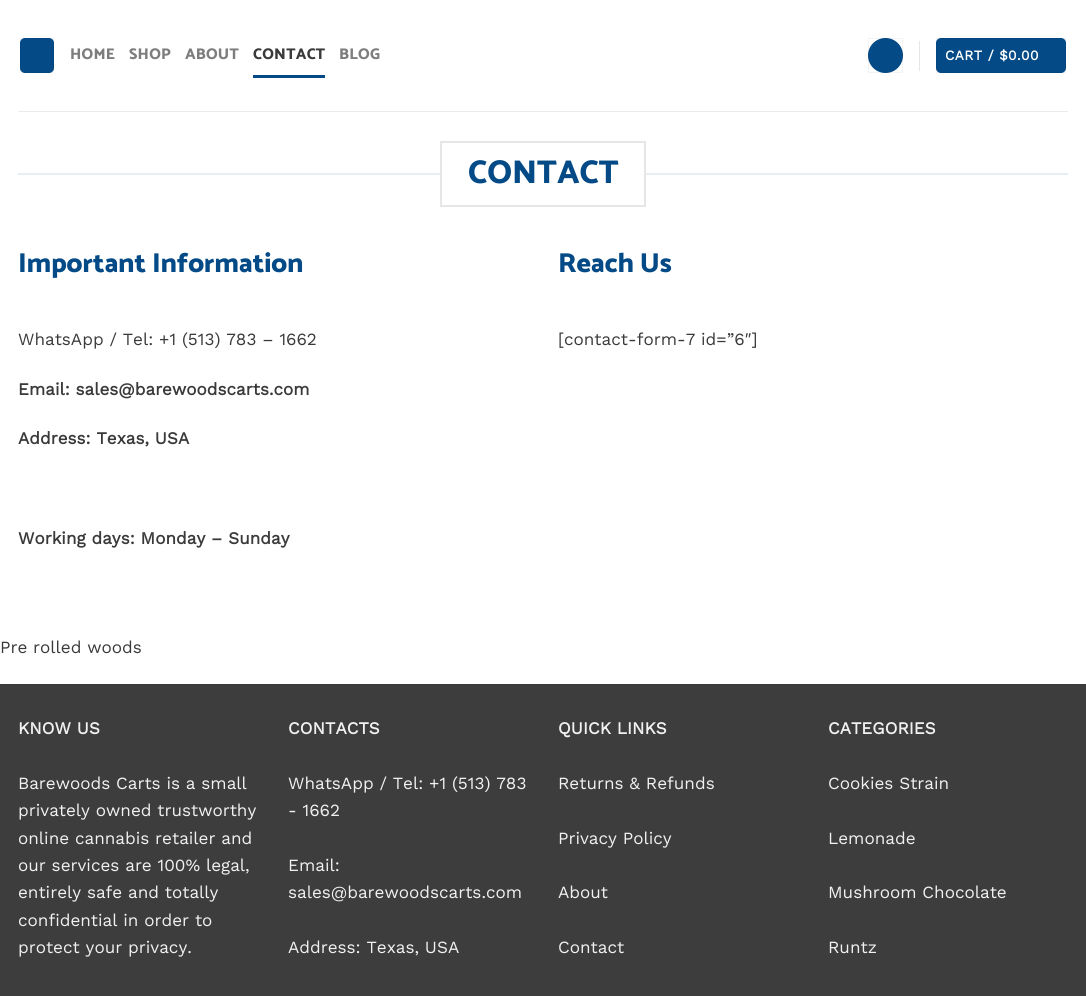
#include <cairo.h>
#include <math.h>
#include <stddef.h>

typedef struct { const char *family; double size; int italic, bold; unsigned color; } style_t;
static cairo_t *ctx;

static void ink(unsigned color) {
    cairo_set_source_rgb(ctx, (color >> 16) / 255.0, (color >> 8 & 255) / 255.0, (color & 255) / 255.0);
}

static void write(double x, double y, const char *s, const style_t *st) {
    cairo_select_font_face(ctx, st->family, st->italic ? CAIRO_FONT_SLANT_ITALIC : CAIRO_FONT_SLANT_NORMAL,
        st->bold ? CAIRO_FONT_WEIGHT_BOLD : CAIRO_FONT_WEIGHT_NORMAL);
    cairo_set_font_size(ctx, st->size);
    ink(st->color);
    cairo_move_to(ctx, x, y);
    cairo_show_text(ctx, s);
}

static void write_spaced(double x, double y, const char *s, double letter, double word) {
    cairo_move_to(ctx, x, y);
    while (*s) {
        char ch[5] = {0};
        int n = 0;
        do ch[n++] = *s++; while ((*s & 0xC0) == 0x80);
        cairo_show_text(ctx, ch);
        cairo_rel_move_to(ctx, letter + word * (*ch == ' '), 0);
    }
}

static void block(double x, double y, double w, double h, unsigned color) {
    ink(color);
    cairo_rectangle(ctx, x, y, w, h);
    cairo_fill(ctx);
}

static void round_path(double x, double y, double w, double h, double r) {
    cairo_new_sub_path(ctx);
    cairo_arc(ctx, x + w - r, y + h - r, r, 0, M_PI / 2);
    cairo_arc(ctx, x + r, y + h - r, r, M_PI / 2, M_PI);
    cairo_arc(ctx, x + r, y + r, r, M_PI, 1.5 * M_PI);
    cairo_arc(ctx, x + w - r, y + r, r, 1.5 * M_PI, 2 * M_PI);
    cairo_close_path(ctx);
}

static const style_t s1 = {"Catamaran ExtraBold", 33, 0, 0, 0x034a86};
static const style_t s2 = {"Catamaran ExtraBold", 27.4, 0, 0, 0x034a86};
static const style_t s3 = {"Work Sans", 17.1, 0, 0, 0x3a3a3a};
static const style_t s4 = {"Work Sans", 17.1, 0, 1, 0x3a3a3a};
static const style_t s5 = {"Work Sans", 17.1, 0, 1, 0xf1f1f1};
static const style_t s6 = {"Work Sans", 17.1, 0, 0, 0xf1f1f1};

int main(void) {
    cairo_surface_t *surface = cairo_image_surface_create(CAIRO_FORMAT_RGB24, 1086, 996);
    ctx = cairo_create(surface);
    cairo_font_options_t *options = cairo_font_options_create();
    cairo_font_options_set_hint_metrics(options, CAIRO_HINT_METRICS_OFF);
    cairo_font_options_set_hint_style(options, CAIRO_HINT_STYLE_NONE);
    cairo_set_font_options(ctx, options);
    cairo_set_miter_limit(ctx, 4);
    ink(0xffffff);
    cairo_paint(ctx);
    ink(0x034a86);
    round_path(20, 38, 34, 35, 5);
    cairo_fill(ctx);
    cairo_rectangle(ctx, 20.5, 38.5, 33, 34);
    cairo_set_source_rgba(ctx, 0, 0, 0, 0.05);
    cairo_set_line_width(ctx, 1);
    cairo_stroke(ctx);
    cairo_select_font_face(ctx, "Catamaran ExtraBold", CAIRO_FONT_SLANT_NORMAL, CAIRO_FONT_WEIGHT_NORMAL);
    cairo_set_font_size(ctx, 15.5);
    ink(0x7d7d7d);
    write_spaced(70, 59, "HOME", 0.25, 0);
    write_spaced(129, 59, "SHOP", 0.25, 0);
    write_spaced(185, 59, "ABOUT", 0.25, 0);
    ink(0x3a3a3a);
    write_spaced(253, 59, "CONTACT", 0.25, 0);
    block(253, 75, 72, 3, 0x034a86);
    ink(0x7d7d7d);
    write_spaced(339, 59, "BLOG", 0.25, 0);
    ink(0x034a86);
    cairo_new_path(ctx);
    cairo_arc(ctx, 885.5, 55.5, 17.5, 0, 2 * M_PI);
    cairo_fill(ctx);
    cairo_rectangle(ctx, 868.5, 38.5, 34, 34);
    cairo_set_source_rgba(ctx, 0, 0, 0, 0.05);
    cairo_stroke(ctx);
    block(919, 41, 1, 30, 0xe6e6e6);
    ink(0x034a86);
    round_path(936, 38, 130, 35, 5);
    cairo_fill(ctx);
    cairo_rectangle(ctx, 936.5, 38.5, 129, 34);
    cairo_set_source_rgba(ctx, 0, 0, 0, 0.05);
    cairo_stroke(ctx);
    cairo_select_font_face(ctx, "Work Sans", CAIRO_FONT_SLANT_NORMAL, CAIRO_FONT_WEIGHT_BOLD);
    cairo_set_font_size(ctx, 13.75);
    ink(0xffffff);
    write_spaced(945, 60, "CART / $0.00", 0.4, 0);
    block(18, 111, 1050, 1, 0xebebeb);
    block(18, 173, 422, 2, 0xe6edf3);
    cairo_rectangle(ctx, 441, 142, 204, 64);
    ink(0xe6e6e6);
    cairo_set_line_width(ctx, 2);
    cairo_stroke(ctx);
    write(468, 183, "CONTACT", &s1);
    block(646, 173, 422, 2, 0xe6edf3);
    write(18, 272, "Important Information", &s2);
    write(18, 345, "WhatsApp / Tel: +1 (513) 783 – 1662", &s3);
    write(18, 395, "Email: sales@barewoodscarts.com", &s4);
    write(18, 444, "Address: Texas, USA", &s4);
    write(18, 544, "Working days: Monday – Sunday", &s4);
    write(558, 272, "Reach Us", &s2);
    write(558, 345, "[contact-form-7 id=”6″]", &s3);
    write(0, 653, "Pre rolled woods", &s3);
    block(0, 685, 1086, 311, 0x3d3d3d);
    block(0, 684, 1086, 1, 0x3a3a3a);
    write(18, 734, "KNOW US", &s5);
    write(18, 789, "Barewoods Carts is a small", &s6);
    write(18, 816, "privately owned trustworthy", &s6);
    write(18, 844, "online cannabis retailer and", &s6);
    write(18, 871, "our services are 100% legal,", &s6);
    write(18, 898, "entirely safe and totally", &s6);
    write(18, 926, "confidential in order to", &s6);
    write(18, 953, "protect your privacy.", &s6);
    write(288, 734, "CONTACTS", &s5);
    write(288, 789, "WhatsApp / Tel: +1 (513) 783", &s6);
    write(288, 816, "- 1662", &s6);
    write(288, 871, "Email:", &s6);
    write(288, 898, "sales@barewoodscarts.com", &s6);
    write(288, 953, "Address: Texas, USA", &s6);
    write(558, 734, "QUICK LINKS", &s5);
    write(558, 789, "Returns & Refunds", &s6);
    write(558, 844, "Privacy Policy", &s6);
    write(558, 898, "About", &s6);
    write(558, 953, "Contact", &s6);
    write(828, 734, "CATEGORIES", &s5);
    write(828, 789, "Cookies Strain", &s6);
    write(828, 844, "Lemonade", &s6);
    write(828, 898, "Mushroom Chocolate", &s6);
    write(828, 953, "Runtz", &s6);
    cairo_surface_write_to_png(surface, "screenshot.png");
    cairo_font_options_destroy(options);
    cairo_destroy(ctx);
    cairo_surface_destroy(surface);
    return 0;
}
